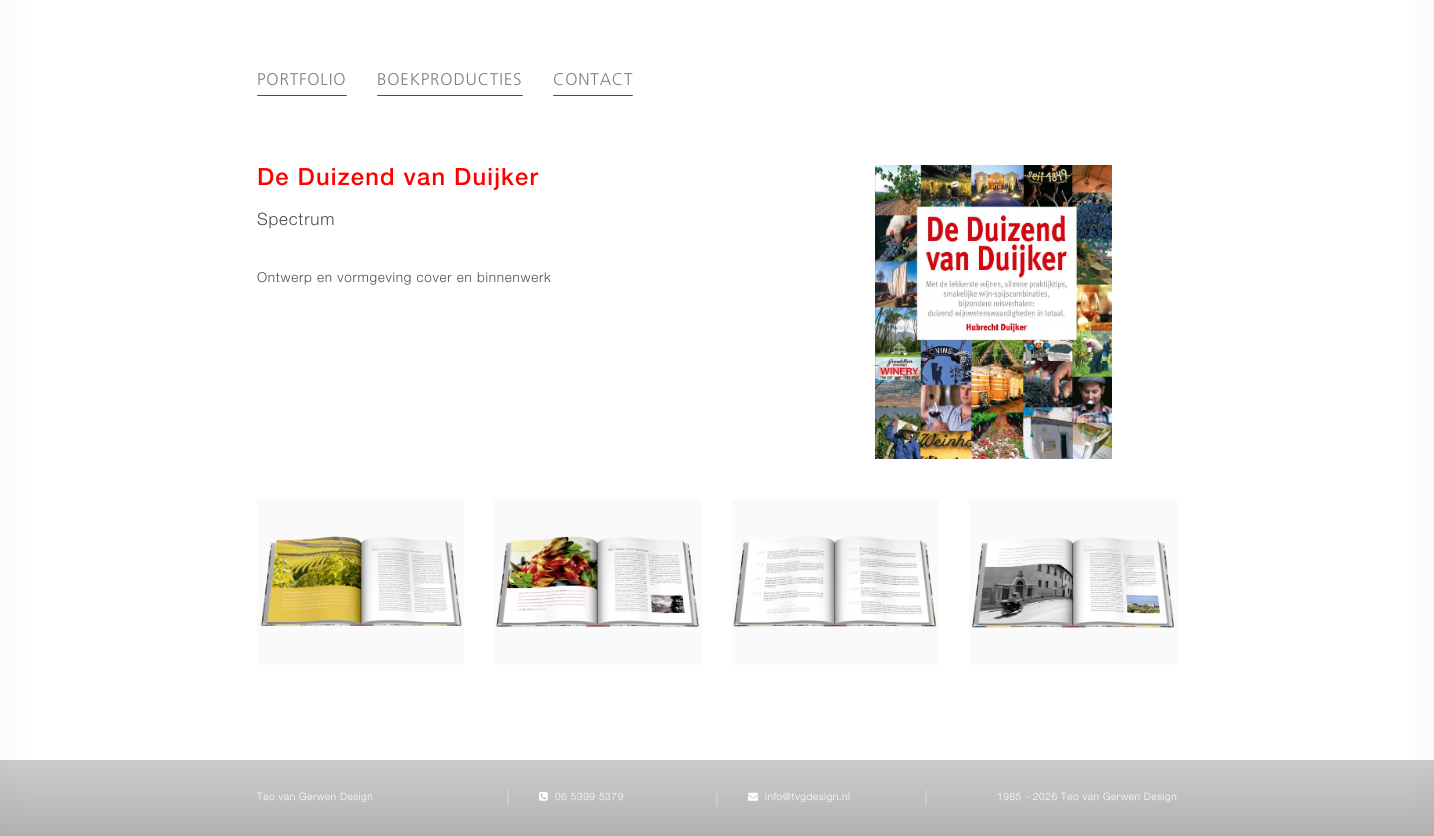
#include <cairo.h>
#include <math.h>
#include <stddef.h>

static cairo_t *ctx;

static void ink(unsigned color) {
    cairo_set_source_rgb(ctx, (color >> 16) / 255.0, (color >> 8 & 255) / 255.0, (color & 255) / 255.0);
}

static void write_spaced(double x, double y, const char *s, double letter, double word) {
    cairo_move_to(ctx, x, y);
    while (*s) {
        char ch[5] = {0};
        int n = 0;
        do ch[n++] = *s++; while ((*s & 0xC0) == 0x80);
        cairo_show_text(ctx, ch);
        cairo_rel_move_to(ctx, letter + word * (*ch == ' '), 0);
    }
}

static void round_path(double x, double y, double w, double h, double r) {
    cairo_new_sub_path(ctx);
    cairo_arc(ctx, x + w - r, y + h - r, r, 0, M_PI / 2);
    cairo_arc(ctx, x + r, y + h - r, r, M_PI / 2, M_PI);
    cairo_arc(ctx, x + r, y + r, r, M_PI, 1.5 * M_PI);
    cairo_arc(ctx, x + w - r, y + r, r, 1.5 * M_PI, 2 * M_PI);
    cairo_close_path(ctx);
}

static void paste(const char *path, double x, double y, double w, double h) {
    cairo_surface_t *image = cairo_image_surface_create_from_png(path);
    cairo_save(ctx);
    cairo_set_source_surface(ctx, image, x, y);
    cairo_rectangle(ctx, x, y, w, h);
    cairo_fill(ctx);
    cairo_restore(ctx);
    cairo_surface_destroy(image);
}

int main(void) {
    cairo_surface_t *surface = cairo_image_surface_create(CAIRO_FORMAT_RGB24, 1434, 836);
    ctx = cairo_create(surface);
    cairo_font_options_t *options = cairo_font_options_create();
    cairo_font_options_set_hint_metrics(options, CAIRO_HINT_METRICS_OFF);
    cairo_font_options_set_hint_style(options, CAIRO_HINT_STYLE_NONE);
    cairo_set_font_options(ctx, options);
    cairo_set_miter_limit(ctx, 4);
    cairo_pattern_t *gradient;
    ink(0xffffff);
    cairo_paint(ctx);
    gradient = cairo_pattern_create_linear(1434, 418, 0, 418);
    cairo_pattern_add_color_stop_rgba(gradient, 0, 0.98, 0.98, 0.98, 1);
    cairo_pattern_add_color_stop_rgba(gradient, 0.02, 1, 1, 1, 1);
    cairo_pattern_add_color_stop_rgba(gradient, 0.98, 1, 1, 1, 1);
    cairo_pattern_add_color_stop_rgba(gradient, 1, 0.98, 0.98, 0.98, 1);
    cairo_set_source(ctx, gradient);
    cairo_pattern_destroy(gradient);
    cairo_rectangle(ctx, 0, 0, 1434, 836);
    cairo_fill(ctx);
    gradient = cairo_pattern_create_linear(302, 96, 302, 60);
    cairo_pattern_add_color_stop_rgba(gradient, 0, 1, 0, 0, 1);
    cairo_pattern_add_color_stop_rgba(gradient, 0.03, 1, 0, 0, 1);
    cairo_pattern_add_color_stop_rgba(gradient, 0.04, 1, 1, 1, 1);
    cairo_pattern_add_color_stop_rgba(gradient, 1, 1, 1, 1, 1);
    cairo_set_source(ctx, gradient);
    cairo_pattern_destroy(gradient);
    round_path(257, 60, 90, 36, 1);
    cairo_fill(ctx);
    cairo_select_font_face(ctx, "Frutiger Light", CAIRO_FONT_SLANT_NORMAL, CAIRO_FONT_WEIGHT_NORMAL);
    cairo_set_font_size(ctx, 17);
    ink(0x7f7f7f);
    write_spaced(257, 85, "PORTFOLIO", 0.8, 0);
    gradient = cairo_pattern_create_linear(450, 96, 450, 60);
    cairo_pattern_add_color_stop_rgba(gradient, 0, 1, 0, 0, 1);
    cairo_pattern_add_color_stop_rgba(gradient, 0.03, 1, 0, 0, 1);
    cairo_pattern_add_color_stop_rgba(gradient, 0.04, 1, 1, 1, 1);
    cairo_pattern_add_color_stop_rgba(gradient, 1, 1, 1, 1, 1);
    cairo_set_source(ctx, gradient);
    cairo_pattern_destroy(gradient);
    round_path(377, 60, 146, 36, 1);
    cairo_fill(ctx);
    ink(0x7f7f7f);
    write_spaced(377, 85, "BOEKPRODUCTIES", 0.8, 0);
    gradient = cairo_pattern_create_linear(593, 96, 593, 60);
    cairo_pattern_add_color_stop_rgba(gradient, 0, 1, 0, 0, 1);
    cairo_pattern_add_color_stop_rgba(gradient, 0.03, 1, 0, 0, 1);
    cairo_pattern_add_color_stop_rgba(gradient, 0.04, 1, 1, 1, 1);
    cairo_pattern_add_color_stop_rgba(gradient, 1, 1, 1, 1, 1);
    cairo_set_source(ctx, gradient);
    cairo_pattern_destroy(gradient);
    round_path(553, 60, 80, 36, 1);
    cairo_fill(ctx);
    ink(0x7f7f7f);
    write_spaced(553, 85, "CONTACT", 0.8, 0);
    cairo_select_font_face(ctx, "Helvetica Neue Medium", CAIRO_FONT_SLANT_NORMAL, CAIRO_FONT_WEIGHT_NORMAL);
    cairo_set_font_size(ctx, 23.75);
    ink(0xff0000);
    write_spaced(257, 185, "De Duizend van Duijker", 1.2, 0);
    cairo_select_font_face(ctx, "Helvetica Neue Light", CAIRO_FONT_SLANT_NORMAL, CAIRO_FONT_WEIGHT_NORMAL);
    cairo_set_font_size(ctx, 17);
    ink(0x4c4c4c);
    write_spaced(257, 225, "Spectrum", 0.8, 0);
    cairo_set_font_size(ctx, 13.6);
    write_spaced(257, 282, "Ontwerp en vormgeving cover en binnenwerk", 0.7, 0);
    paste("pic1.png", 875, 165, 237, 294);
    ink(0xfafafa);
    round_path(257, 499, 207, 166, 1);
    cairo_fill(ctx);
    paste("pic2.png", 261, 536, 201, 90);
    round_path(494, 499, 208, 166, 1);
    cairo_fill(ctx);
    paste("pic3.png", 496, 536, 203, 91);
    round_path(732, 499, 207, 166, 1);
    cairo_fill(ctx);
    paste("pic4.png", 733, 536, 204, 91);
    round_path(969, 499, 208, 166, 1);
    cairo_fill(ctx);
    paste("pic5.png", 972, 537, 203, 91);
    gradient = cairo_pattern_create_linear(717, 760, 717, 836);
    cairo_pattern_add_color_stop_rgba(gradient, 0, 0.498, 0.498, 0.498, 0.4);
    cairo_pattern_add_color_stop_rgba(gradient, 1, 0.498, 0.498, 0.498, 0.6);
    cairo_set_source(ctx, gradient);
    cairo_pattern_destroy(gradient);
    cairo_rectangle(ctx, 0, 760, 1434, 76);
    cairo_fill(ctx);
    cairo_set_source_rgba(ctx, 1, 1, 1, 0.2);
    cairo_rectangle(ctx, 507, 790, 2, 16);
    cairo_fill(ctx);
    cairo_set_font_size(ctx, 10.25);
    ink(0xffffff);
    write_spaced(257, 800, "Teo van Gerwen Design", 0.5, 0);
    cairo_set_source_rgba(ctx, 1, 1, 1, 0.2);
    cairo_rectangle(ctx, 716, 790, 2, 16);
    cairo_fill(ctx);
    paste("pic6.png", 539, 792, 9, 9);
    ink(0xffffff);
    write_spaced(555, 800, "06 5399 5379", 0.5, 0);
    cairo_set_source_rgba(ctx, 1, 1, 1, 0.2);
    cairo_rectangle(ctx, 925, 790, 2, 16);
    cairo_fill(ctx);
    paste("pic7.png", 748, 792, 11, 9);
    ink(0xffffff);
    write_spaced(765, 800, "info@tvgdesign.nl", 0.5, 0);
    write_spaced(997, 800, "1985 - 2026 Teo van Gerwen Design", 0.5, 0);
    cairo_surface_write_to_png(surface, "screenshot.png");
    cairo_font_options_destroy(options);
    cairo_destroy(ctx);
    cairo_surface_destroy(surface);
    return 0;
}
